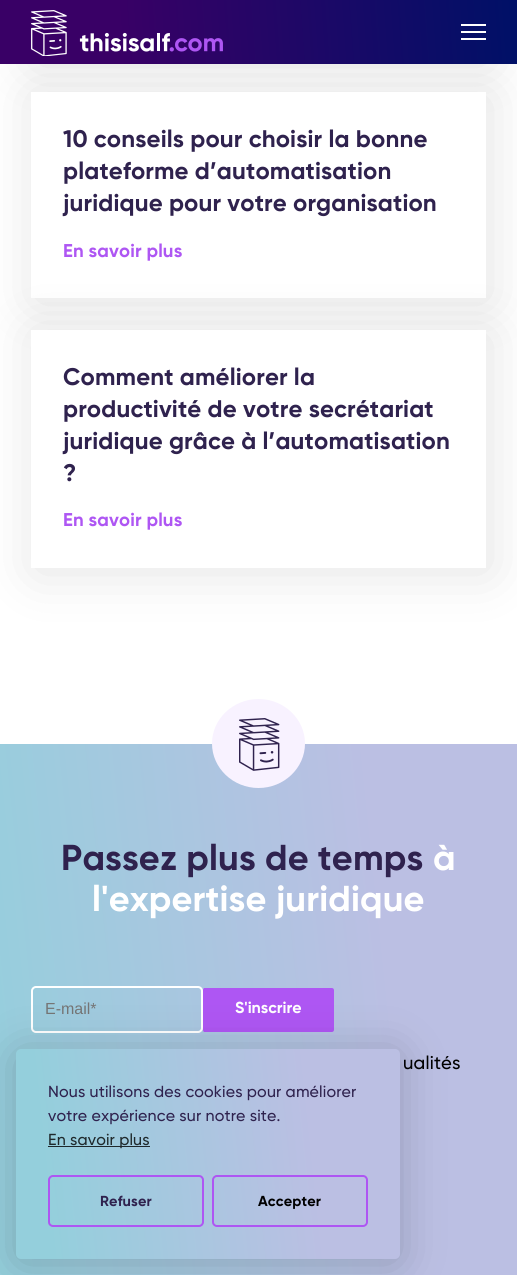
#include <cairo.h>
#include <math.h>
#include <stddef.h>

typedef struct { const char *family; double size; int italic, bold; unsigned color; } style_t;
static cairo_t *ctx;

static void ink(unsigned color) {
    cairo_set_source_rgb(ctx, (color >> 16) / 255.0, (color >> 8 & 255) / 255.0, (color & 255) / 255.0);
}

static void write(double x, double y, const char *s, const style_t *st) {
    cairo_select_font_face(ctx, st->family, st->italic ? CAIRO_FONT_SLANT_ITALIC : CAIRO_FONT_SLANT_NORMAL,
        st->bold ? CAIRO_FONT_WEIGHT_BOLD : CAIRO_FONT_WEIGHT_NORMAL);
    cairo_set_font_size(ctx, st->size);
    ink(st->color);
    cairo_move_to(ctx, x, y);
    cairo_show_text(ctx, s);
}

static void write_spaced(double x, double y, const char *s, double letter, double word) {
    cairo_move_to(ctx, x, y);
    while (*s) {
        char ch[5] = {0};
        int n = 0;
        do ch[n++] = *s++; while ((*s & 0xC0) == 0x80);
        cairo_show_text(ctx, ch);
        cairo_rel_move_to(ctx, letter + word * (*ch == ' '), 0);
    }
}

static void block(double x, double y, double w, double h, unsigned color) {
    ink(color);
    cairo_rectangle(ctx, x, y, w, h);
    cairo_fill(ctx);
}

static void round_path(double x, double y, double w, double h, double r) {
    cairo_new_sub_path(ctx);
    cairo_arc(ctx, x + w - r, y + h - r, r, 0, M_PI / 2);
    cairo_arc(ctx, x + r, y + h - r, r, M_PI / 2, M_PI);
    cairo_arc(ctx, x + r, y + r, r, M_PI, 1.5 * M_PI);
    cairo_arc(ctx, x + w - r, y + r, r, 1.5 * M_PI, 2 * M_PI);
    cairo_close_path(ctx);
}

static void blur_box(double x, double y, double w, double h, double r, double blur, double alpha) {
    cairo_push_group_with_content(ctx, CAIRO_CONTENT_ALPHA);
    cairo_set_operator(ctx, CAIRO_OPERATOR_SOURCE);
    for (int i = 15; i >= -15 && fmin(w, h) + blur * i / 3 > 0; i -= 2) {
        double e = blur * i / 6;
        cairo_set_source_rgba(ctx, 0, 0, 0, alpha * erfc((i - 1) / 8.5) / 2);
        round_path(x - e, y - e, w + 2 * e, h + 2 * e, fmax(0, fmin(r + e + blur * .6, fmin(w, h) / 2 + e)));
        cairo_fill(ctx);
    }
    cairo_pattern_t *soft = cairo_pop_group(ctx);
    cairo_mask(ctx, soft);
    cairo_pattern_destroy(soft);
}

static void paste(const char *path, double x, double y, double w, double h) {
    cairo_surface_t *image = cairo_image_surface_create_from_png(path);
    cairo_save(ctx);
    cairo_set_source_surface(ctx, image, x, y);
    cairo_rectangle(ctx, x, y, w, h);
    cairo_fill(ctx);
    cairo_restore(ctx);
    cairo_surface_destroy(image);
}

static const style_t s1 = {"Liberation Sans", 16, 0, 0, 0x757575};
static const style_t s2 = {"Gilroy", 16, 0, 1, 0xffffff};

int main(void) {
    cairo_surface_t *surface = cairo_image_surface_create(CAIRO_FORMAT_RGB24, 517, 1275);
    ctx = cairo_create(surface);
    cairo_font_options_t *options = cairo_font_options_create();
    cairo_font_options_set_hint_metrics(options, CAIRO_HINT_METRICS_OFF);
    cairo_font_options_set_hint_style(options, CAIRO_HINT_STYLE_NONE);
    cairo_set_font_options(ctx, options);
    cairo_set_miter_limit(ctx, 4);
    cairo_pattern_t *gradient;
    ink(0xffffff);
    cairo_paint(ctx);
    ink(0x000000);
    blur_box(35, -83, 455, 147, 0, 27.5, 0.11);
    blur_box(35, 96, 455, 206, 0, 27.5, 0.11);
    gradient = cairo_pattern_create_linear(-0.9, 51, 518, 13);
    cairo_pattern_add_color_stop_rgba(gradient, 0.23, 0.224, 0, 0.4, 1);
    cairo_pattern_add_color_stop_rgba(gradient, 0.99, 0, 0.063, 0.404, 1);
    cairo_set_source(ctx, gradient);
    cairo_pattern_destroy(gradient);
    cairo_rectangle(ctx, 0, 0, 517, 64);
    cairo_fill(ctx);
    block(461, 31, 25, 2, 0xffffff);
    block(461, 24, 25, 2, 0xffffff);
    block(461, 38, 25, 2, 0xffffff);
    paste("pic1.png", 31, 10, 192, 46);
    block(31, 92, 455, 206, 0xffffff);
    cairo_select_font_face(ctx, "Gilroy", CAIRO_FONT_SLANT_NORMAL, CAIRO_FONT_WEIGHT_BOLD);
    cairo_set_font_size(ctx, 24);
    ink(0x2f224e);
    write_spaced(63, 147, "10 conseils pour choisir la bonne", 0.15, 0);
    write_spaced(63, 179, "plateforme d’automatisation", 0.15, 0);
    write_spaced(63, 211, "juridique pour votre organisation", 0.15, 0);
    cairo_set_font_size(ctx, 18.5);
    ink(0xae56f3);
    write_spaced(63, 257, "En savoir plus", 0.15, 0);
    ink(0x000000);
    blur_box(35, 334, 455, 238, 0, 27.5, 0.11);
    block(31, 330, 455, 238, 0xffffff);
    cairo_set_font_size(ctx, 24);
    ink(0x2f224e);
    write_spaced(63, 385, "Comment améliorer la", 0.15, 0);
    write_spaced(63, 417, "productivité de votre secrétariat", 0.15, 0);
    write_spaced(63, 449, "juridique grâce à l’automatisation", 0.15, 0);
    write_spaced(63, 481, "?", 0.15, 0);
    cairo_set_font_size(ctx, 18.5);
    ink(0xae56f3);
    write_spaced(63, 526, "En savoir plus", 0.15, 0);
    gradient = cairo_pattern_create_linear(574, 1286, -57, 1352);
    cairo_pattern_add_color_stop_rgba(gradient, 0.24, 0.733, 0.749, 0.89, 1);
    cairo_pattern_add_color_stop_rgba(gradient, 0.91, 0.58, 0.812, 0.863, 1);
    cairo_set_source(ctx, gradient);
    cairo_pattern_destroy(gradient);
    cairo_rectangle(ctx, 0, 744, 517, 531);
    cairo_fill(ctx);
    ink(0xf8f2ff);
    cairo_new_path(ctx);
    cairo_move_to(ctx, 258.5, 699);
    cairo_curve_to(ctx, 284, 699, 305, 719, 305, 743.5);
    cairo_curve_to(ctx, 305, 768, 284, 788, 258.5, 788);
    cairo_curve_to(ctx, 233, 788, 212, 768, 212, 743.5);
    cairo_curve_to(ctx, 212, 719, 233, 699, 258.5, 699);
    cairo_close_path(ctx);
    cairo_fill(ctx);
    paste("pic2.png", 239, 718, 41, 53);
    cairo_set_font_size(ctx, 36);
    ink(0x2f224e);
    write_spaced(61, 870, "Passez plus de temps", 0.15, 0);
    ink(0xffffff);
    write_spaced(433, 870, "à", 0.15, 0);
    write_spaced(92, 911, "l'expertise juridique", 0.15, 0);
    round_path(32, 987, 170, 45, 4);
    cairo_stroke(ctx);
    write(45, 1014, "E-mail*", &s1);
    ink(0xae56f3);
    cairo_new_path(ctx);
    cairo_move_to(ctx, 204, 988);
    cairo_curve_to(ctx, 204, 988, 203, 989, 203, 990);
    cairo_line_to(ctx, 203, 1030);
    cairo_curve_to(ctx, 203, 1031, 204, 1032, 204, 1032);
    cairo_line_to(ctx, 332, 1032);
    cairo_curve_to(ctx, 333, 1032, 334, 1031, 334, 1030);
    cairo_line_to(ctx, 334, 990);
    cairo_curve_to(ctx, 334, 989, 333, 988, 332, 988);
    cairo_close_path(ctx);
    cairo_fill(ctx);
    write(235, 1013, "S'inscrire", &s2);
    cairo_select_font_face(ctx, "Gilroy Medium", CAIRO_FONT_SLANT_NORMAL, CAIRO_FONT_WEIGHT_NORMAL);
    cairo_set_font_size(ctx, 18.5);
    ink(0x000000);
    write_spaced(403, 1069, "ualités", 0.15, 0);
    ink(0x000000);
    blur_box(16, 1053, 384, 210, 5, 22, 0.2);
    gradient = cairo_pattern_create_linear(409, 1133, 7.2, 1175);
    cairo_pattern_add_color_stop_rgba(gradient, 0.24, 0.733, 0.749, 0.89, 1);
    cairo_pattern_add_color_stop_rgba(gradient, 0.91, 0.58, 0.812, 0.863, 1);
    cairo_set_source(ctx, gradient);
    cairo_pattern_destroy(gradient);
    round_path(16, 1049, 384, 210, 5);
    cairo_fill(ctx);
    cairo_set_font_size(ctx, 16);
    ink(0x2f224e);
    write_spaced(48, 1097, "Nous utilisons des cookies pour améliorer", 0.15, 0);
    write_spaced(48, 1121, "votre expérience sur notre site.", 0.15, 0);
    cairo_set_source_rgba(ctx, 0, 0, 0, 0.8);
    cairo_rectangle(ctx, 48, 1146, 102, 1);
    cairo_fill(ctx);
    ink(0x1f292c);
    write_spaced(48, 1145, "En savoir plus", 0.15, 0);
    round_path(49, 1176, 154, 50, 4);
    ink(0xae56f3);
    cairo_stroke(ctx);
    cairo_select_font_face(ctx, "Gilroy", CAIRO_FONT_SLANT_NORMAL, CAIRO_FONT_WEIGHT_BOLD);
    cairo_set_font_size(ctx, 14.5);
    ink(0x2f224e);
    write_spaced(100, 1206, "Refuser", 0.15, 0);
    round_path(213, 1176, 154, 50, 4);
    ink(0xae56f3);
    cairo_stroke(ctx);
    ink(0x000000);
    write_spaced(258, 1206, "Accepter", 0.15, 0);
    cairo_surface_write_to_png(surface, "screenshot.png");
    cairo_font_options_destroy(options);
    cairo_destroy(ctx);
    cairo_surface_destroy(surface);
    return 0;
}
